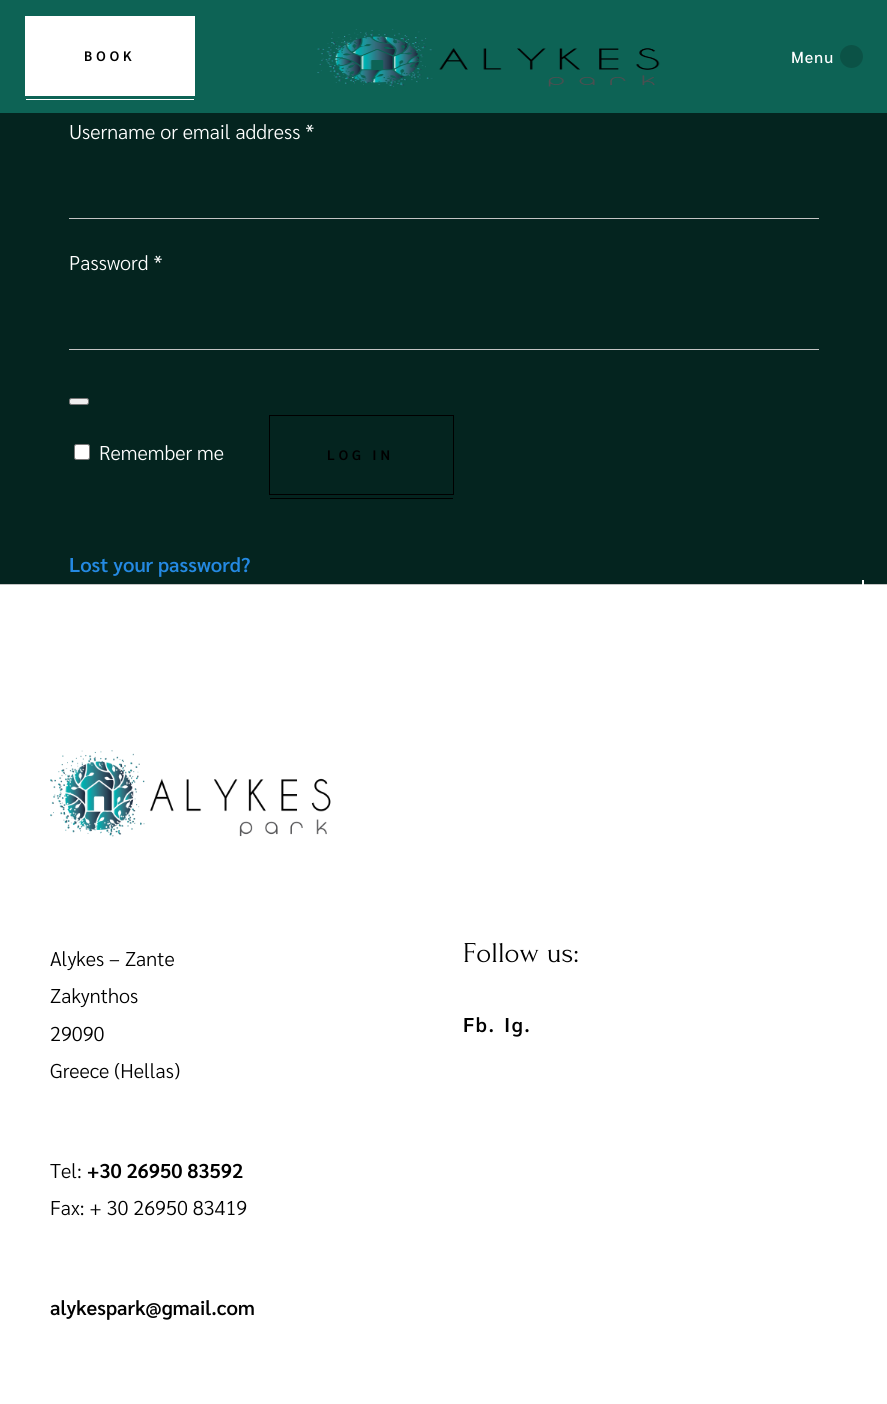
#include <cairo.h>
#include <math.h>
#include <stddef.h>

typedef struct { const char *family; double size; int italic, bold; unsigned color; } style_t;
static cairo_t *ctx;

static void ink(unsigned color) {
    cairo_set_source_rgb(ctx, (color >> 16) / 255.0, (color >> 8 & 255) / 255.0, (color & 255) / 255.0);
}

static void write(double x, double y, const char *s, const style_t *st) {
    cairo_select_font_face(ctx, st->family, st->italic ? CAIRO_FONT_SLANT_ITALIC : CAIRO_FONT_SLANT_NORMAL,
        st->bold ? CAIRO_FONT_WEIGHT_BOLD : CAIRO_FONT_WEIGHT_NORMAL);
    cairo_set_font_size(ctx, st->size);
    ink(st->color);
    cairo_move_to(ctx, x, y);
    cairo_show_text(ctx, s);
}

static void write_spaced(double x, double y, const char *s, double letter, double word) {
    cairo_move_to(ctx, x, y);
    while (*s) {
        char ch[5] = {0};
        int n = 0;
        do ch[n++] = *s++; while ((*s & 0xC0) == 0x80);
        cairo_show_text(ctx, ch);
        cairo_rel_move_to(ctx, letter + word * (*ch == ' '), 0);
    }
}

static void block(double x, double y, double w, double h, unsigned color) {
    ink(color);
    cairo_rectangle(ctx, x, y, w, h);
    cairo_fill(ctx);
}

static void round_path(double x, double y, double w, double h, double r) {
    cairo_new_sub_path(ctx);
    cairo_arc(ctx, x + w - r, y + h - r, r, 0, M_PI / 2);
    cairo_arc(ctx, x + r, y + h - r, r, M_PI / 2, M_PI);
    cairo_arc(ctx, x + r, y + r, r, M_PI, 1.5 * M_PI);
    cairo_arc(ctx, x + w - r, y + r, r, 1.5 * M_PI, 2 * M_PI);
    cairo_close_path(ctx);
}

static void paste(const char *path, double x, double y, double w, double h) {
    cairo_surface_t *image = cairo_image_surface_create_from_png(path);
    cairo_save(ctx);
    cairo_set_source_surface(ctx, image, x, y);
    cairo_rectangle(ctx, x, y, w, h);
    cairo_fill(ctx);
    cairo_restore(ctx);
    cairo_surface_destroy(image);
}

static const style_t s1 = {"Sarabun Light", 20, 0, 0, 0xffffff};
static const style_t s2 = {"Sarabun SemiBold", 20, 0, 0, 0x2489e2};
static const style_t s3 = {"Sarabun Light", 20, 0, 0, 0x000000};
static const style_t s4 = {"Sarabun SemiBold", 20, 0, 0, 0x000000};
static const style_t s5 = {"Forum", 28.75, 0, 0, 0x000000};

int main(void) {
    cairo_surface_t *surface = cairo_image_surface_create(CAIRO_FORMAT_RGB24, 887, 1404);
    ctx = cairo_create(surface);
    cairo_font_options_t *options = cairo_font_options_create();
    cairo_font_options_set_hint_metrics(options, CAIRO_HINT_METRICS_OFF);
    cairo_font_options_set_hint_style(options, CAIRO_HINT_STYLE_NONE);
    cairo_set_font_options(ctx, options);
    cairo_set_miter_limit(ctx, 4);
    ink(0x04241f);
    cairo_paint(ctx);
    block(0, 0, 887, 113, 0x0d6355);
    block(25, 16, 170, 80, 0xffffff);
    cairo_select_font_face(ctx, "Sarabun SemiBold", CAIRO_FONT_SLANT_NORMAL, CAIRO_FONT_WEIGHT_NORMAL);
    cairo_set_font_size(ctx, 13.75);
    ink(0x000000);
    write_spaced(84, 61, "BOOK", 4, 0);
    block(26, 99, 168, 1, 0xffffff);
    paste("pic1.png", 317, 29, 343, 58);
    cairo_select_font_face(ctx, "Sarabun Medium", CAIRO_FONT_SLANT_NORMAL, CAIRO_FONT_WEIGHT_NORMAL);
    cairo_set_font_size(ctx, 16);
    write_spaced(791, 63, "Menu", 1, 0);
    ink(0x0b5246);
    cairo_new_path(ctx);
    cairo_arc(ctx, 851.5, 56.5, 11.5, 0, 2 * M_PI);
    cairo_fill(ctx);
    write(69, 139, "Username or email address *", &s1);
    block(69, 218, 750, 1, 0xc4c4c4);
    write(69, 270, "Password *", &s1);
    block(69, 349, 750, 1, 0xc4c4c4);
    ink(0xefefef);
    round_path(69.5, 398.5, 19, 6, 2);
    cairo_fill_preserve(ctx);
    ink(0x767676);
    cairo_set_line_width(ctx, 1);
    cairo_stroke(ctx);
    ink(0xffffff);
    round_path(74.5, 444.5, 15, 15, 2);
    cairo_fill_preserve(ctx);
    ink(0x767676);
    cairo_stroke(ctx);
    write(99, 460, "Remember me", &s1);
    cairo_rectangle(ctx, 269.5, 415.5, 184, 79);
    ink(0x000000);
    cairo_stroke(ctx);
    cairo_select_font_face(ctx, "Sarabun SemiBold", CAIRO_FONT_SLANT_NORMAL, CAIRO_FONT_WEIGHT_NORMAL);
    cairo_set_font_size(ctx, 13.75);
    write_spaced(327, 460, "LOG IN", 4, 0);
    block(270, 498, 183, 1, 0x000000);
    write(69, 572, "Lost your password?", &s2);
    block(0, 584, 887, 1, 0xc4c4c4);
    block(862, 580, 2, 5, 0xffffff);
    block(0, 585, 887, 819, 0xffffff);
    paste("pic2.png", 50, 750, 281, 87);
    write(50, 966, "Alykes – Zante", &s3);
    write(50, 1003, "Zakynthos", &s3);
    write(50, 1041, "29090", &s3);
    write(50, 1078, "Greece (Hellas)", &s3);
    write(50, 1178, "Tel:", &s3);
    write(87, 1178, "+30 26950 83592", &s4);
    write(50, 1215, "Fax: + 30 26950 83419", &s3);
    write(50, 1315, "alykespark@gmail.com", &s4);
    write(463, 962, "Follow us:", &s5);
    cairo_select_font_face(ctx, "Sarabun SemiBold", CAIRO_FONT_SLANT_NORMAL, CAIRO_FONT_WEIGHT_NORMAL);
    cairo_set_font_size(ctx, 20);
    write_spaced(463, 1032, "Fb.", 1.5, 0);
    write_spaced(504, 1032, "Ig.", 1.5, 0);
    cairo_surface_write_to_png(surface, "screenshot.png");
    cairo_font_options_destroy(options);
    cairo_destroy(ctx);
    cairo_surface_destroy(surface);
    return 0;
}
